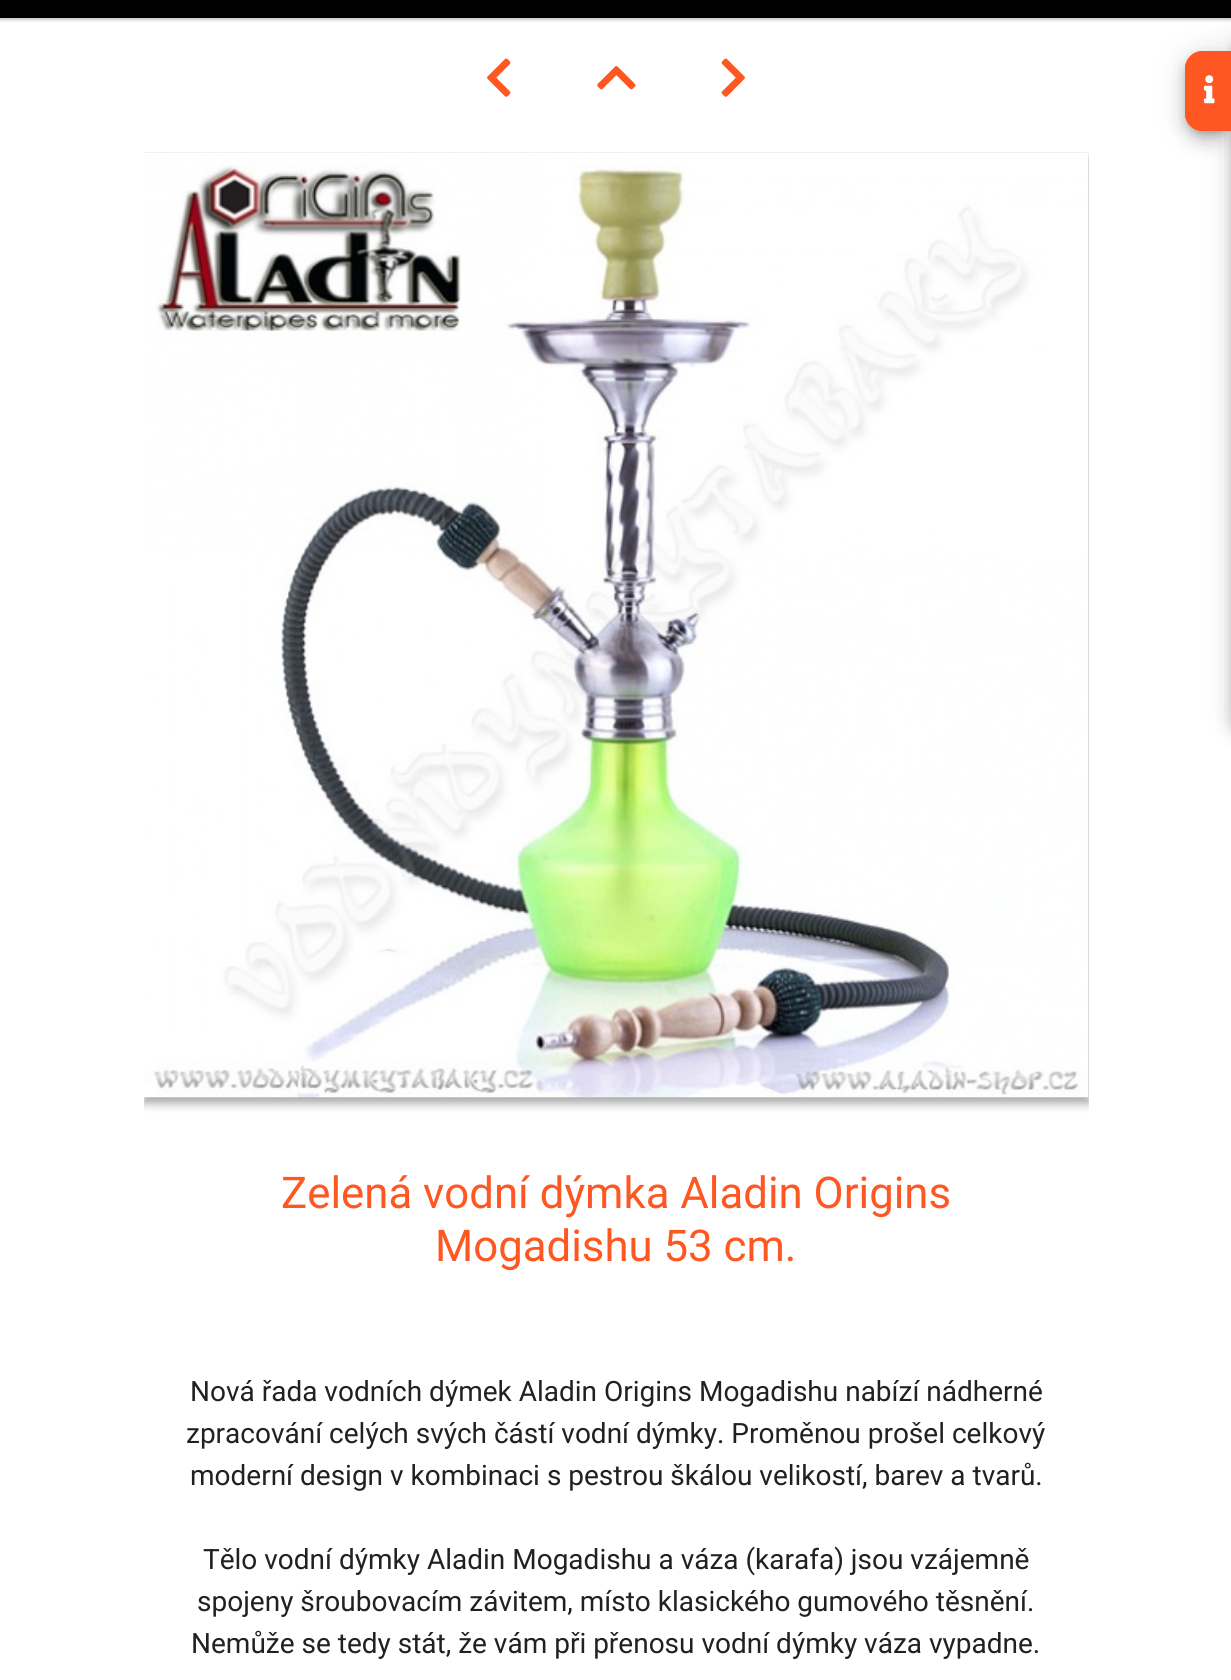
#include <cairo.h>
#include <math.h>
#include <stddef.h>

typedef struct { const char *family; double size; int italic, bold; unsigned color; } style_t;
static cairo_t *ctx;

static void ink(unsigned color) {
    cairo_set_source_rgb(ctx, (color >> 16) / 255.0, (color >> 8 & 255) / 255.0, (color & 255) / 255.0);
}

static void write(double x, double y, const char *s, const style_t *st) {
    cairo_select_font_face(ctx, st->family, st->italic ? CAIRO_FONT_SLANT_ITALIC : CAIRO_FONT_SLANT_NORMAL,
        st->bold ? CAIRO_FONT_WEIGHT_BOLD : CAIRO_FONT_WEIGHT_NORMAL);
    cairo_set_font_size(ctx, st->size);
    ink(st->color);
    cairo_move_to(ctx, x, y);
    cairo_show_text(ctx, s);
}

static void block(double x, double y, double w, double h, unsigned color) {
    ink(color);
    cairo_rectangle(ctx, x, y, w, h);
    cairo_fill(ctx);
}

static void round_path(double x, double y, double w, double h, double r) {
    cairo_new_sub_path(ctx);
    cairo_arc(ctx, x + w - r, y + h - r, r, 0, M_PI / 2);
    cairo_arc(ctx, x + r, y + h - r, r, M_PI / 2, M_PI);
    cairo_arc(ctx, x + r, y + r, r, M_PI, 1.5 * M_PI);
    cairo_arc(ctx, x + w - r, y + r, r, 1.5 * M_PI, 2 * M_PI);
    cairo_close_path(ctx);
}

static void blur_box(double x, double y, double w, double h, double r, double blur, double alpha) {
    cairo_push_group_with_content(ctx, CAIRO_CONTENT_ALPHA);
    cairo_set_operator(ctx, CAIRO_OPERATOR_SOURCE);
    for (int i = 15; i >= -15 && fmin(w, h) + blur * i / 3 > 0; i -= 2) {
        double e = blur * i / 6;
        cairo_set_source_rgba(ctx, 0, 0, 0, alpha * erfc((i - 1) / 8.5) / 2);
        round_path(x - e, y - e, w + 2 * e, h + 2 * e, fmax(0, fmin(r + e + blur * .6, fmin(w, h) / 2 + e)));
        cairo_fill(ctx);
    }
    cairo_pattern_t *soft = cairo_pop_group(ctx);
    cairo_mask(ctx, soft);
    cairo_pattern_destroy(soft);
}

static void paste(const char *path, double x, double y, double w, double h) {
    cairo_surface_t *image = cairo_image_surface_create_from_png(path);
    cairo_save(ctx);
    cairo_set_source_surface(ctx, image, x, y);
    cairo_rectangle(ctx, x, y, w, h);
    cairo_fill(ctx);
    cairo_restore(ctx);
    cairo_surface_destroy(image);
}

static const style_t s1 = {"Roboto", 43.75, 0, 0, 0xff5722};
static const style_t s2 = {"Roboto", 28, 0, 0, 0x212121};

int main(void) {
    cairo_surface_t *surface = cairo_image_surface_create(CAIRO_FORMAT_RGB24, 1231, 1680);
    ctx = cairo_create(surface);
    cairo_font_options_t *options = cairo_font_options_create();
    cairo_font_options_set_hint_metrics(options, CAIRO_HINT_METRICS_OFF);
    cairo_font_options_set_hint_style(options, CAIRO_HINT_STYLE_NONE);
    cairo_set_font_options(ctx, options);
    cairo_set_miter_limit(ctx, 4);
    ink(0xffffff);
    cairo_paint(ctx);
    ink(0x000000);
    blur_box(0, -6, 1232, 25, 0, 2, 0.24);
    blur_box(0, -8, 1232, 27, 0, 2.5, 0.12);
    blur_box(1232, 35, 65, 695, 18, 16, 0.12);
    blur_box(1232, 44, 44, 695, 18, 9, 0.14);
    blur_box(1185, 53, 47, 80, 18, 16, 0.12);
    block(0, 0, 1231, 18, 0x000000);
    paste("pic1.png", 487, 58, 24, 39);
    paste("pic2.png", 597, 66, 39, 24);
    paste("pic3.png", 721, 58, 24, 39);
    ink(0x000000);
    blur_box(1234, 40, 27, 692, 16, 4.5, 0.2);
    blur_box(1187, 58, 43, 77, 16, 4.5, 0.2);
    blur_box(1185, 61, 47, 81, 18, 9, 0.14);
    ink(0xff5722);
    cairo_new_path(ctx);
    cairo_move_to(ctx, 1203, 51);
    cairo_line_to(ctx, 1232, 51);
    cairo_line_to(ctx, 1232, 131);
    cairo_line_to(ctx, 1203, 131);
    cairo_curve_to(ctx, 1193, 131, 1185, 123, 1185, 113);
    cairo_line_to(ctx, 1185, 69);
    cairo_curve_to(ctx, 1185, 59, 1193, 51, 1203, 51);
    cairo_close_path(ctx);
    cairo_fill(ctx);
    cairo_set_fill_rule(ctx, CAIRO_FILL_RULE_EVEN_ODD);
    cairo_new_path(ctx);
    cairo_move_to(ctx, 1202, 51);
    cairo_line_to(ctx, 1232, 51);
    cairo_line_to(ctx, 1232, 131);
    cairo_line_to(ctx, 1202, 131);
    cairo_curve_to(ctx, 1193, 131, 1185, 123, 1185, 114);
    cairo_line_to(ctx, 1185, 68);
    cairo_curve_to(ctx, 1185, 59, 1193, 51, 1202, 51);
    cairo_close_path(ctx);
    cairo_move_to(ctx, 1202, 52);
    cairo_line_to(ctx, 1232, 52);
    cairo_line_to(ctx, 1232, 130);
    cairo_line_to(ctx, 1202, 130);
    cairo_curve_to(ctx, 1194, 130, 1186, 122, 1186, 114);
    cairo_line_to(ctx, 1186, 68);
    cairo_curve_to(ctx, 1186, 60, 1194, 52, 1202, 52);
    cairo_close_path(ctx);
    cairo_fill(ctx);
    paste("pic4.png", 1204, 75, 11, 29);
    cairo_save(ctx);
    cairo_set_fill_rule(ctx, CAIRO_FILL_RULE_WINDING);
    cairo_rectangle(ctx, 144, 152, 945, 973);
    cairo_clip(ctx);
    ink(0x000000);
    blur_box(144, 158, 945, 945, 0, 5, 0.23);
    blur_box(144, 158, 945, 945, 0, 5, 0.16);
    cairo_restore(ctx);
    paste("pic5.png", 144, 153, 945, 945);
    write(281, 1208, "Zelená vodní dýmka Aladin Origins", &s1);
    write(435, 1261, "Mogadishu 53 cm.", &s1);
    write(190, 1401, "Nová řada vodních dýmek Aladin Origins Mogadishu nabízí nádherné", &s2);
    write(186, 1443, "zpracování celých svých částí vodní dýmky. Proměnou prošel celkový", &s2);
    write(190, 1485, "moderní design v kombinaci s pestrou škálou velikostí, barev a tvarů.", &s2);
    write(203, 1569, "Tělo vodní dýmky Aladin Mogadishu a váza (karafa) jsou vzájemně", &s2);
    write(197, 1611, "spojeny šroubovacím závitem, místo klasického gumového těsnění.", &s2);
    write(191, 1653, "Nemůže se tedy stát, že vám při přenosu vodní dýmky váza vypadne.", &s2);
    cairo_surface_write_to_png(surface, "screenshot.png");
    cairo_font_options_destroy(options);
    cairo_destroy(ctx);
    cairo_surface_destroy(surface);
    return 0;
}
